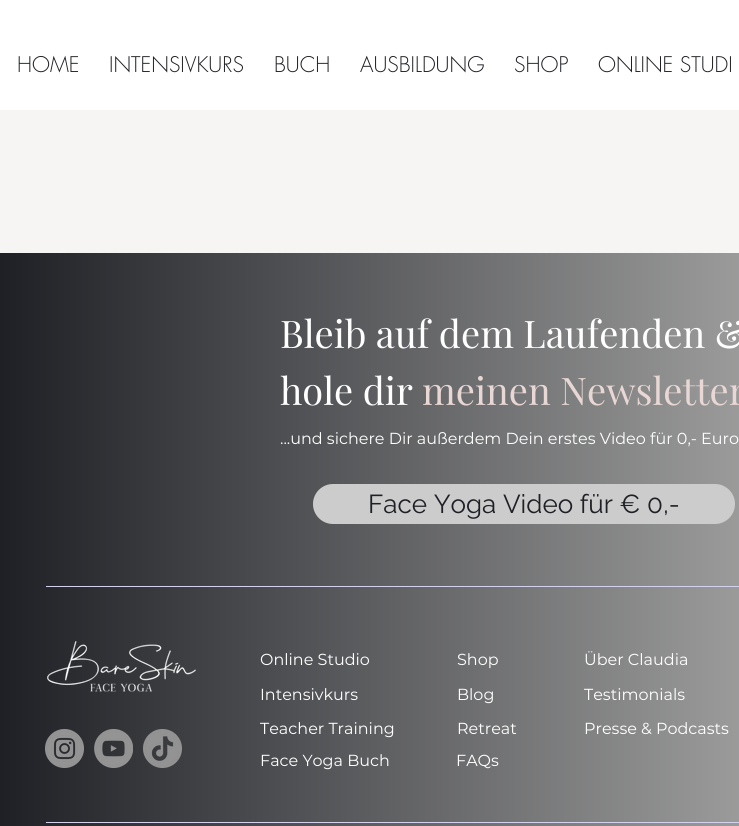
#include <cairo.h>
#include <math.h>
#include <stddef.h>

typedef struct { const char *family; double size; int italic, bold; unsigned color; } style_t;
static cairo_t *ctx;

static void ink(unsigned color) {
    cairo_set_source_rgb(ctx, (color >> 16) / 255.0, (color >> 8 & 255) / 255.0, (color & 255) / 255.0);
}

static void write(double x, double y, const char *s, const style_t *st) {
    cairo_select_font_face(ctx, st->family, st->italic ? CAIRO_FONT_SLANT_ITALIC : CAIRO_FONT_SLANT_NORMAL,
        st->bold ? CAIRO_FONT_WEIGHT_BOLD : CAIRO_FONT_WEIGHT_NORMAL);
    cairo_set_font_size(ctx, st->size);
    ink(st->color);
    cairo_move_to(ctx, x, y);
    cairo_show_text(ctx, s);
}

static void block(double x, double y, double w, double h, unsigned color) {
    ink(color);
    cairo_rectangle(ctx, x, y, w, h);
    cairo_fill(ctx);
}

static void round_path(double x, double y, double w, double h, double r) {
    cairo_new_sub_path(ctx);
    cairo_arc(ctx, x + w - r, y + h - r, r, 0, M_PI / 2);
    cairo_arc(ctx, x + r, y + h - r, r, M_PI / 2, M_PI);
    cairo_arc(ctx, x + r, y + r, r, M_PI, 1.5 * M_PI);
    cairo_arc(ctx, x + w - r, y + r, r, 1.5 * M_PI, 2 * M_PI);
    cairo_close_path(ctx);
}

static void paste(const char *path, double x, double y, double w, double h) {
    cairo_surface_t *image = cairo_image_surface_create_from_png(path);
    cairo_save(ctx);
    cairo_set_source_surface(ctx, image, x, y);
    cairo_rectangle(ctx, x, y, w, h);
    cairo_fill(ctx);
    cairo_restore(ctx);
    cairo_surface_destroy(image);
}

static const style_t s1 = {"futura Light", 21, 0, 0, 0x1e2025};
static const style_t s2 = {"Playfair Display", 38, 0, 0, 0xffffff};
static const style_t s3 = {"Playfair Display", 38, 0, 0, 0xe8d7d4};
static const style_t s4 = {"Montserrat", 16, 0, 0, 0xffffff};
static const style_t s5 = {"Raleway", 26, 0, 0, 0x1e2025};

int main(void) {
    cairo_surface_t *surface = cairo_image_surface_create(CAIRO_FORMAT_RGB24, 739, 826);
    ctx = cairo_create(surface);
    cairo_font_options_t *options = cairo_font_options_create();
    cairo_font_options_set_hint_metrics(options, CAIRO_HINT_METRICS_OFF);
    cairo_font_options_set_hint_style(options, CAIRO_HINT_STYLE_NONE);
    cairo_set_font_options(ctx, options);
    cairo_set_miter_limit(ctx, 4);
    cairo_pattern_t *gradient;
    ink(0xf6f5f3);
    cairo_paint(ctx);
    block(0, 0, 739, 110, 0xffffff);
    write(17, 72, "HOME", &s1);
    write(109, 72, "INTENSIVKURS", &s1);
    write(274, 72, "BUCH", &s1);
    write(360, 72, "AUSBILDUNG", &s1);
    write(514, 72, "SHOP", &s1);
    write(598, 72, "ONLINE STUDI", &s1);
    gradient = cairo_pattern_create_linear(0, 619, 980, 619);
    cairo_pattern_add_color_stop_rgba(gradient, 0, 0.118, 0.125, 0.145, 1);
    cairo_pattern_add_color_stop_rgba(gradient, 0.83, 0.655, 0.655, 0.651, 1);
    cairo_pattern_add_color_stop_rgba(gradient, 1, 0.118, 0.125, 0.145, 1);
    cairo_set_source(ctx, gradient);
    cairo_pattern_destroy(gradient);
    cairo_rectangle(ctx, 0, 253, 739, 573);
    cairo_fill(ctx);
    write(280, 348, "Bleib auf dem Laufenden &", &s2);
    write(280, 405, "hole dir", &s2);
    write(422, 405, "meinen Newsletter", &s3);
    write(280, 444, "...und sichere Dir außerdem Dein erstes Video für 0,- Euro", &s4);
    ink(0xcccccc);
    round_path(313, 484, 422, 40, 20);
    cairo_fill(ctx);
    write(368, 513, "Face Yoga Video für € 0,-", &s5);
    block(46, 586, 693, 1, 0xd3d2ee);
    paste("pic1.png", 47, 641, 149, 51);
    write(260, 665, "Online Studio", &s4);
    write(457, 665, "Shop", &s4);
    write(584, 665, "Über Claudia", &s4);
    write(260, 700, "Intensivkurs", &s4);
    write(457, 700, "Blog", &s4);
    write(584, 700, "Testimonials", &s4);
    paste("pic2.png", 45, 729, 39, 39);
    paste("pic3.png", 94, 729, 39, 39);
    paste("pic4.png", 143, 729, 39, 39);
    write(260, 734, "Teacher Training", &s4);
    write(457, 734, "Retreat", &s4);
    write(584, 734, "Presse & Podcasts", &s4);
    write(260, 766, "Face Yoga Buch", &s4);
    write(456, 766, "FAQs", &s4);
    block(46, 822, 693, 1, 0xd3d2ee);
    cairo_surface_write_to_png(surface, "screenshot.png");
    cairo_font_options_destroy(options);
    cairo_destroy(ctx);
    cairo_surface_destroy(surface);
    return 0;
}
